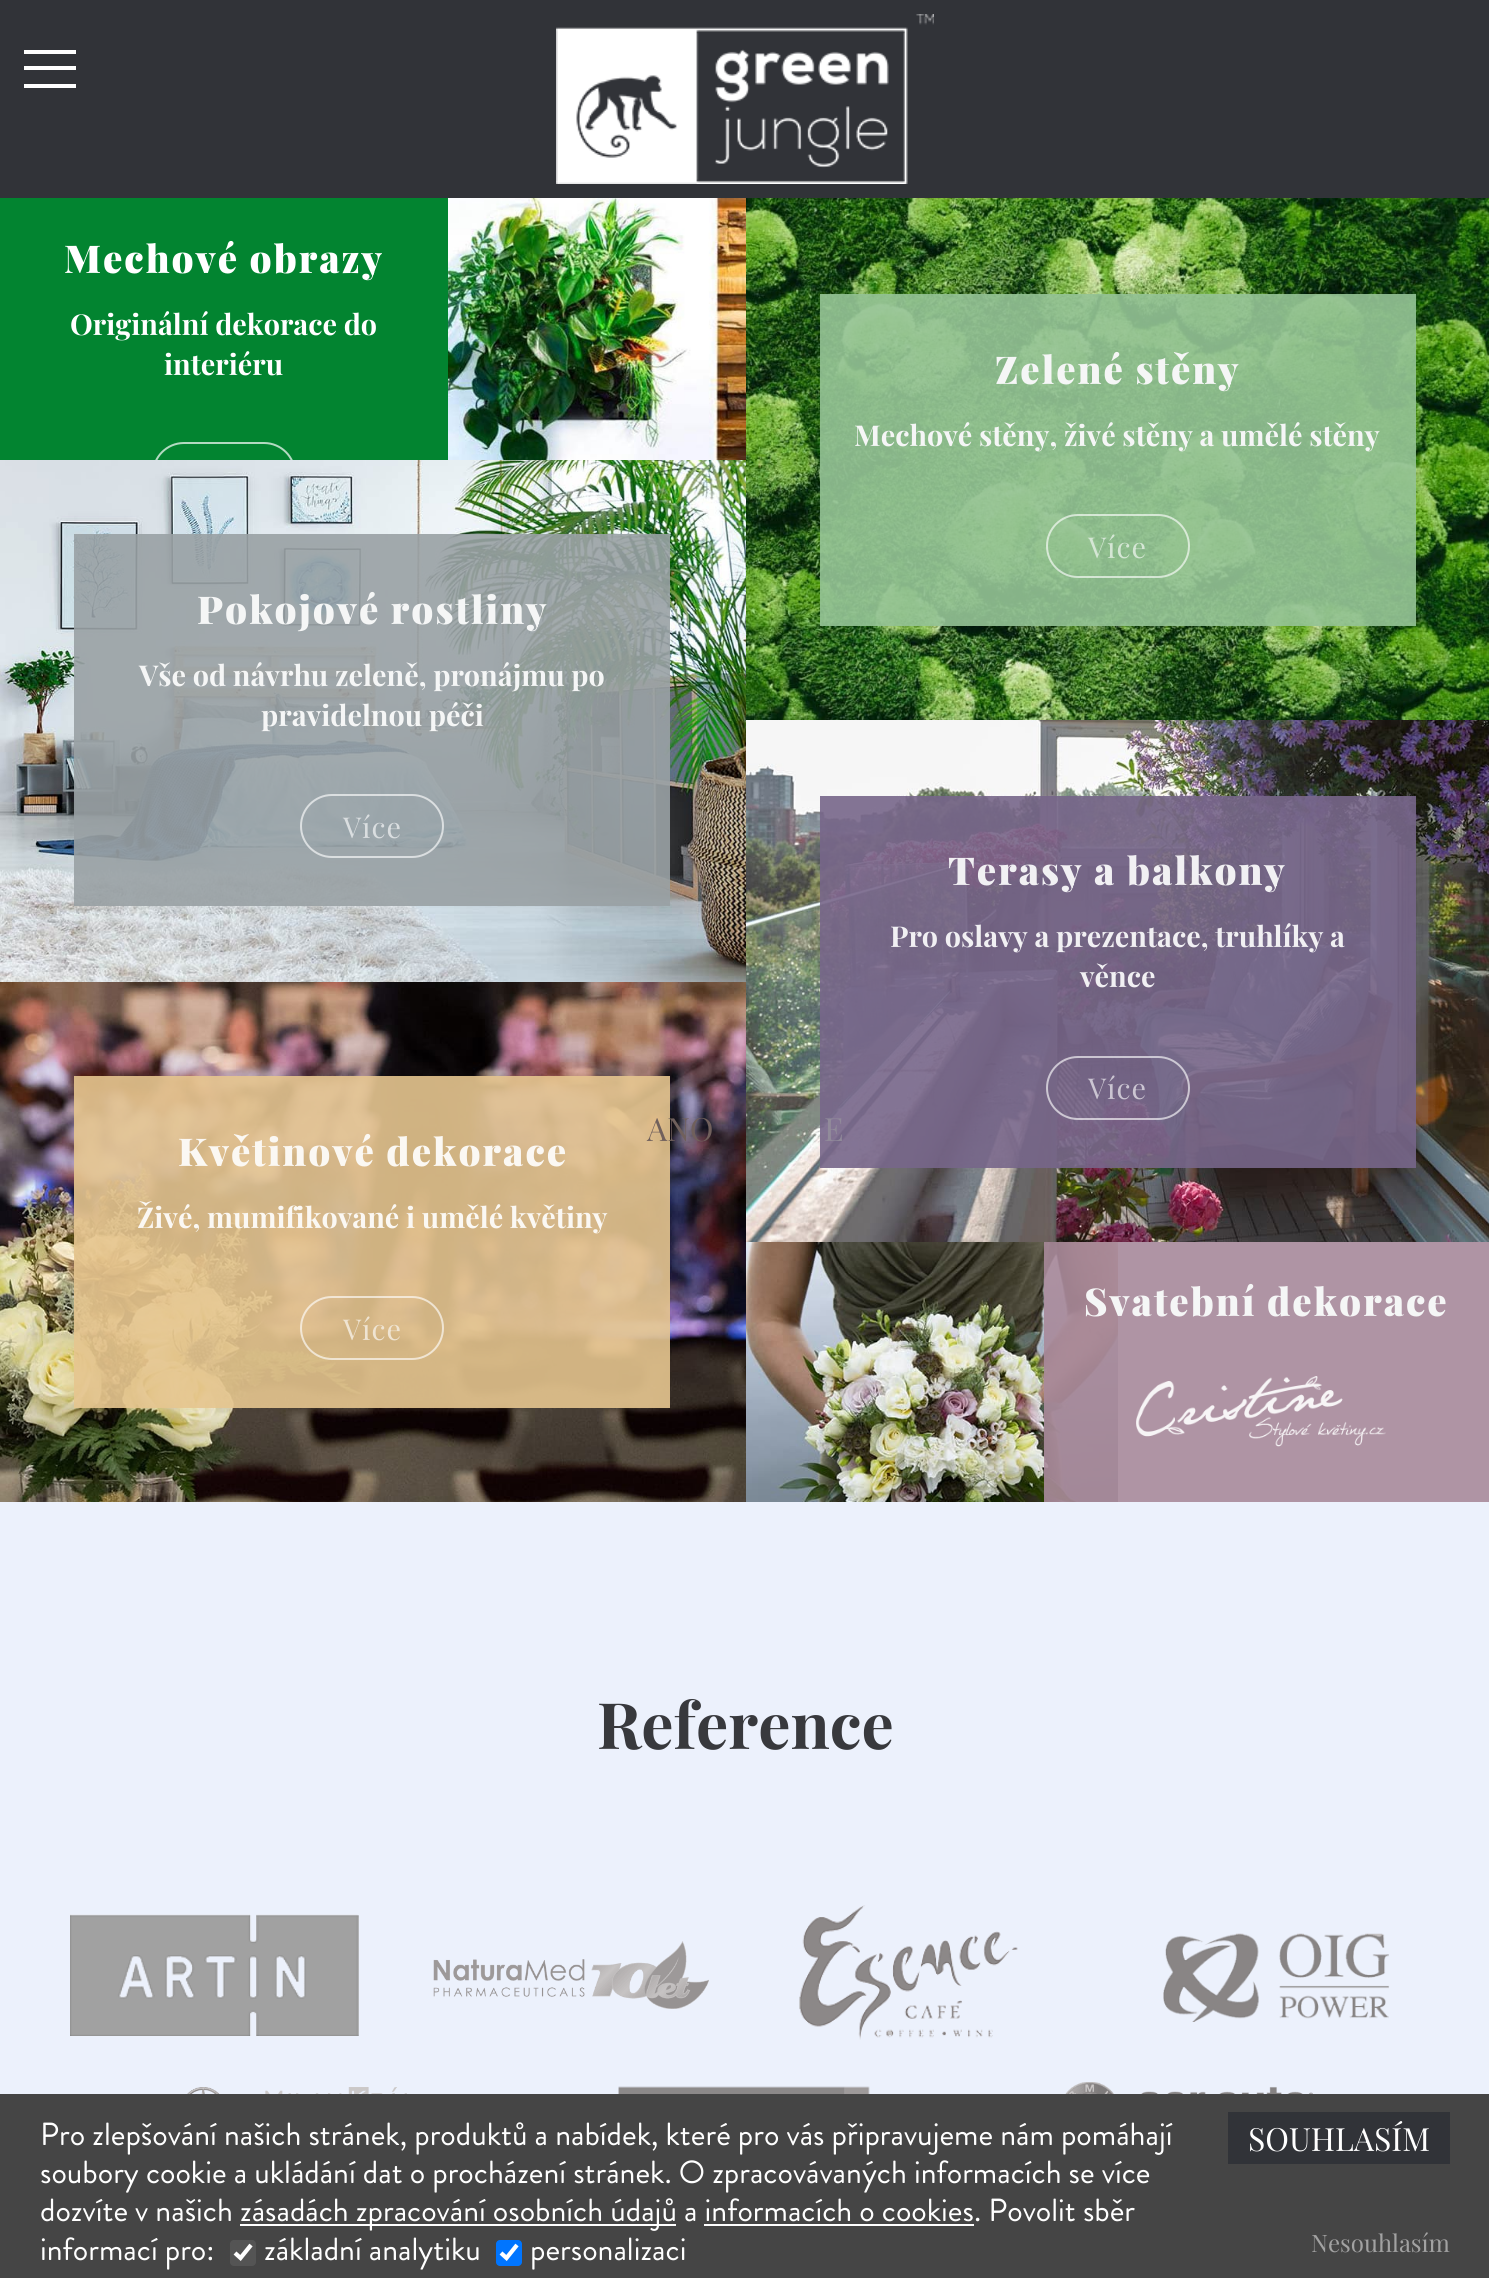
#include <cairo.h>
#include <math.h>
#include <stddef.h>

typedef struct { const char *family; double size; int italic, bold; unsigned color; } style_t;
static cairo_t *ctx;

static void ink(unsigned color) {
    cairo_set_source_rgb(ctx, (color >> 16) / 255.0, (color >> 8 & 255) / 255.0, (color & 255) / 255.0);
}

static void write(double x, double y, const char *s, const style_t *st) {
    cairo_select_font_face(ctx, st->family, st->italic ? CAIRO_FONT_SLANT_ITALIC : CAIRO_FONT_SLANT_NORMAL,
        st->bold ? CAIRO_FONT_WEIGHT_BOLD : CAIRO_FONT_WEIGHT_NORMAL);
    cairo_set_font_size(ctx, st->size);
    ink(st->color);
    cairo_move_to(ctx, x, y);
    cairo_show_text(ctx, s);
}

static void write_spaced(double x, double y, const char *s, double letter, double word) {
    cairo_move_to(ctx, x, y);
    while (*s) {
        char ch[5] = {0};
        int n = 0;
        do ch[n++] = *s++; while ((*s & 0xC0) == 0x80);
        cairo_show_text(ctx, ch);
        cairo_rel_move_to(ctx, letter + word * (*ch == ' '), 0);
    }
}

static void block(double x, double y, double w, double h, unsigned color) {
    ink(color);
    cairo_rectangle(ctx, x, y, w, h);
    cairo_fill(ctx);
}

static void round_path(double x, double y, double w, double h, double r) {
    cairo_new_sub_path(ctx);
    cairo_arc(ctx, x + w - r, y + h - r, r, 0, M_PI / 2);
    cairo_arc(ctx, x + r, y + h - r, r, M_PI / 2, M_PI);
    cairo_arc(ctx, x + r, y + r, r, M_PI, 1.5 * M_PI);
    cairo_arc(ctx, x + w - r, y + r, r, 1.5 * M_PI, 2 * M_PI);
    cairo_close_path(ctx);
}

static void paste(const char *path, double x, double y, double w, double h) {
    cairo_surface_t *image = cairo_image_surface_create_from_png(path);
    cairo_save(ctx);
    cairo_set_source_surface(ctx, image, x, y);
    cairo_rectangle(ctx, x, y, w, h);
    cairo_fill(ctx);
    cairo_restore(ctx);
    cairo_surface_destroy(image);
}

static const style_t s1 = {"Playfair Display", 28.75, 0, 1, 0xffffff};
static const style_t s2 = {"Playfair Display", 28.75, 0, 1, 0xf5f6f6};
static const style_t s3 = {"Playfair Display", 28.75, 0, 1, 0xfbf8f3};
static const style_t s4 = {"Playfair Display", 28.75, 0, 1, 0xf1f0f3};
static const style_t s5 = {"Playfair Display", 64, 0, 1, 0x38393d};
static const style_t s6 = {"Playfair Display", 32, 0, 0, 0x70605c};
static const style_t s7 = {"Playfair Display", 32, 0, 0, 0x918b9a};
static const style_t s8 = {"Brandon Grotesque", 32, 0, 0, 0xffffff};
static const style_t s9 = {"Playfair Display", 32, 0, 0, 0xffffff};
static const style_t s10 = {"Playfair Display", 24, 0, 0, 0xa2a2a2};

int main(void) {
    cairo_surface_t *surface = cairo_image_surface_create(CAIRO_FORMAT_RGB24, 1489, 2278);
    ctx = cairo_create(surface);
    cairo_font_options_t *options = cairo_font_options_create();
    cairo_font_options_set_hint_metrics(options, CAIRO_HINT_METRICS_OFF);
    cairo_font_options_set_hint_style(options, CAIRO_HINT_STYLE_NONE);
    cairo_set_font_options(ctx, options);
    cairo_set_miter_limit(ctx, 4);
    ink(0x313338);
    cairo_paint(ctx);
    block(24, 50, 52, 4, 0xffffff);
    block(24, 66, 52, 4, 0xffffff);
    block(24, 84, 52, 4, 0xffffff);
    paste("pic1.png", 556, 14, 378, 170);
    block(0, 1242, 1489, 852, 0xecf1fc);
    block(0, 198, 448, 262, 0x028430);
    cairo_select_font_face(ctx, "Playfair Display Black", CAIRO_FONT_SLANT_NORMAL, CAIRO_FONT_WEIGHT_NORMAL);
    cairo_set_font_size(ctx, 38.4);
    ink(0xffffff);
    write_spaced(64, 273, "Mechové obrazy", 2, 0);
    write(70, 335, "Originální dekorace do", &s1);
    write(164, 375, "interiéru", &s1);
    round_path(153, 443, 142, 62, 31);
    ink(0xb3dac1);
    cairo_stroke(ctx);
    paste("pic2.png", 448, 198, 298, 262);
    paste("pic3.png", 0, 460, 746, 522);
    cairo_set_source_rgba(ctx, 0.6, 0.631, 0.643, 0.9);
    cairo_rectangle(ctx, 74, 534, 596, 372);
    cairo_fill(ctx);
    cairo_select_font_face(ctx, "Playfair Display Black", CAIRO_FONT_SLANT_NORMAL, CAIRO_FONT_WEIGHT_NORMAL);
    cairo_set_font_size(ctx, 38.4);
    ink(0xf5f6f6);
    write_spaced(197, 624, "Pokojové rostliny", 2, 0);
    write(139, 686, "Vše od návrhu zeleně, pronájmu po", &s2);
    write(261, 726, "pravidelnou péči", &s2);
    round_path(301, 795, 142, 62, 31);
    cairo_set_source_rgba(ctx, 1, 1, 1, 0.63);
    cairo_stroke(ctx);
    cairo_select_font_face(ctx, "Playfair Display", CAIRO_FONT_SLANT_NORMAL, CAIRO_FONT_WEIGHT_NORMAL);
    ink(0xdadee0);
    write_spaced(343, 838, "Více", 1, 0);
    paste("pic4.png", 0, 982, 746, 520);
    cairo_set_source_rgba(ctx, 0.902, 0.773, 0.561, 0.9);
    cairo_rectangle(ctx, 74, 1076, 596, 332);
    cairo_fill(ctx);
    cairo_select_font_face(ctx, "Playfair Display Black", CAIRO_FONT_SLANT_NORMAL, CAIRO_FONT_WEIGHT_NORMAL);
    cairo_set_font_size(ctx, 38.4);
    ink(0xfbf8f3);
    write_spaced(178, 1166, "Květinové dekorace", 2, 0);
    write(137, 1228, "Živé, mumifikované i umělé květiny", &s3);
    round_path(301, 1297, 142, 62, 31);
    cairo_set_source_rgba(ctx, 1, 1, 1, 0.63);
    cairo_stroke(ctx);
    cairo_select_font_face(ctx, "Playfair Display", CAIRO_FONT_SLANT_NORMAL, CAIRO_FONT_WEIGHT_NORMAL);
    ink(0xefe4d2);
    write_spaced(343, 1340, "Více", 1, 0);
    paste("pic5.png", 746, 198, 743, 522);
    cairo_set_source_rgba(ctx, 0.584, 0.765, 0.588, 0.9);
    cairo_rectangle(ctx, 820, 294, 596, 332);
    cairo_fill(ctx);
    cairo_select_font_face(ctx, "Playfair Display Black", CAIRO_FONT_SLANT_NORMAL, CAIRO_FONT_WEIGHT_NORMAL);
    cairo_set_font_size(ctx, 38.4);
    ink(0xf5f6f6);
    write_spaced(995, 384, "Zelené stěny", 2, 0);
    write(854, 446, "Mechové stěny, živé stěny a umělé stěny", &s2);
    round_path(1047, 515, 142, 62, 31);
    cairo_set_source_rgba(ctx, 1, 1, 1, 0.63);
    cairo_stroke(ctx);
    cairo_select_font_face(ctx, "Playfair Display", CAIRO_FONT_SLANT_NORMAL, CAIRO_FONT_WEIGHT_NORMAL);
    ink(0xd5e6d5);
    write_spaced(1088, 558, "Více", 1, 0);
    paste("pic6.png", 746, 720, 743, 522);
    cairo_set_source_rgba(ctx, 0.467, 0.4, 0.541, 0.9);
    cairo_rectangle(ctx, 820, 796, 596, 372);
    cairo_fill(ctx);
    cairo_select_font_face(ctx, "Playfair Display Black", CAIRO_FONT_SLANT_NORMAL, CAIRO_FONT_WEIGHT_NORMAL);
    cairo_set_font_size(ctx, 38.4);
    ink(0xf1f0f3);
    write_spaced(948, 885, "Terasy a balkony", 2, 0);
    write(890, 947, "Pro oslavy a prezentace, truhlíky a", &s4);
    write(1080, 987, "věnce", &s4);
    round_path(1047, 1057, 142, 62, 31);
    cairo_set_source_rgba(ctx, 1, 1, 1, 0.63);
    cairo_stroke(ctx);
    cairo_select_font_face(ctx, "Playfair Display", CAIRO_FONT_SLANT_NORMAL, CAIRO_FONT_WEIGHT_NORMAL);
    ink(0xcbc5d2);
    write_spaced(1088, 1099, "Více", 1, 0);
    paste("pic7.png", 746, 1242, 372, 260);
    cairo_set_source_rgba(ctx, 0.663, 0.541, 0.604, 0.9);
    cairo_rectangle(ctx, 1044, 1242, 445, 260);
    cairo_fill(ctx);
    cairo_select_font_face(ctx, "Playfair Display Black", CAIRO_FONT_SLANT_NORMAL, CAIRO_FONT_WEIGHT_NORMAL);
    cairo_set_font_size(ctx, 38.4);
    ink(0xf5f6f6);
    write_spaced(1084, 1316, "Svatební dekorace", 2, 0);
    paste("pic8.png", 1136, 1376, 250, 71);
    write(597, 1749, "Reference", &s5);
    paste("pic9.png", 70, 1914, 289, 122);
    paste("pic10.png", 433, 1941, 276, 68);
    paste("pic11.png", 799, 1905, 219, 135);
    paste("pic12.png", 1163, 1933, 227, 89);
    paste("pic13.png", 187, 2087, 220, 7);
    paste("pic14.png", 618, 2086, 252, 8);
    paste("pic15.png", 1065, 2082, 248, 12);
    write(647, 1141, "ANO", &s6);
    write(824, 1141, "E", &s7);
    block(0, 2094, 1489, 184, 0x454545);
    write(40, 2145, "Pro zlepšování našich stránek, produktů a nabídek, které pro vás připravujeme nám pomáhají", &s8);
    write(40, 2183, "soubory cookie a ukládání dat o procházení stránek. O zpracovávaných informacích se více", &s8);
    write(40, 2221, "dozvíte v našich", &s8);
    block(240, 2224, 436, 2, 0xffffff);
    write(240, 2221, "zásadách zpracování osobních údajů a informacích o cookies. Povolit sběr", &s8);
    block(704, 2224, 270, 2, 0xffffff);
    write(40, 2260, "informací pro:", &s8);
    ink(0x545454);
    round_path(230, 2240, 26, 26, 4);
    cairo_fill(ctx);
    cairo_new_path(ctx);
    cairo_move_to(ctx, 235, 2253);
    cairo_line_to(ctx, 240.5, 2258);
    cairo_line_to(ctx, 251, 2245);
    ink(0xffffff);
    cairo_set_line_width(ctx, 4.2);
    cairo_stroke(ctx);
    write(264, 2260, "základní analytiku", &s8);
    ink(0x0075ff);
    round_path(496, 2240, 26, 26, 4);
    cairo_fill(ctx);
    cairo_new_path(ctx);
    cairo_move_to(ctx, 501, 2253);
    cairo_line_to(ctx, 506.5, 2258);
    cairo_line_to(ctx, 517, 2245);
    ink(0xffffff);
    cairo_stroke(ctx);
    write(530, 2260, "personalizaci", &s8);
    block(1228, 2112, 222, 52, 0x313338);
    write(1248, 2151, "SOUHLASÍM", &s9);
    write(1311, 2252, "Nesouhlasím", &s10);
    cairo_surface_write_to_png(surface, "screenshot.png");
    cairo_font_options_destroy(options);
    cairo_destroy(ctx);
    cairo_surface_destroy(surface);
    return 0;
}
